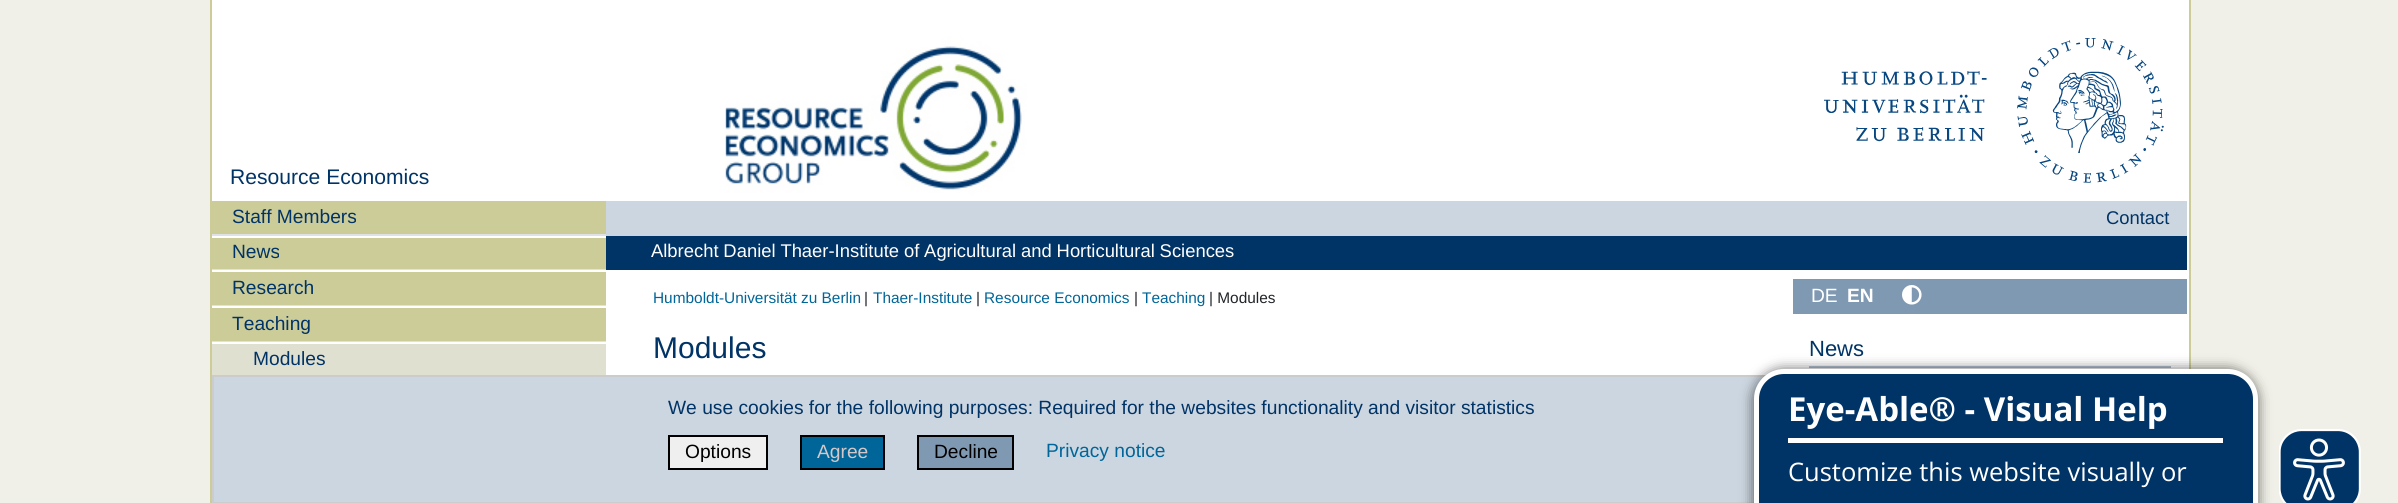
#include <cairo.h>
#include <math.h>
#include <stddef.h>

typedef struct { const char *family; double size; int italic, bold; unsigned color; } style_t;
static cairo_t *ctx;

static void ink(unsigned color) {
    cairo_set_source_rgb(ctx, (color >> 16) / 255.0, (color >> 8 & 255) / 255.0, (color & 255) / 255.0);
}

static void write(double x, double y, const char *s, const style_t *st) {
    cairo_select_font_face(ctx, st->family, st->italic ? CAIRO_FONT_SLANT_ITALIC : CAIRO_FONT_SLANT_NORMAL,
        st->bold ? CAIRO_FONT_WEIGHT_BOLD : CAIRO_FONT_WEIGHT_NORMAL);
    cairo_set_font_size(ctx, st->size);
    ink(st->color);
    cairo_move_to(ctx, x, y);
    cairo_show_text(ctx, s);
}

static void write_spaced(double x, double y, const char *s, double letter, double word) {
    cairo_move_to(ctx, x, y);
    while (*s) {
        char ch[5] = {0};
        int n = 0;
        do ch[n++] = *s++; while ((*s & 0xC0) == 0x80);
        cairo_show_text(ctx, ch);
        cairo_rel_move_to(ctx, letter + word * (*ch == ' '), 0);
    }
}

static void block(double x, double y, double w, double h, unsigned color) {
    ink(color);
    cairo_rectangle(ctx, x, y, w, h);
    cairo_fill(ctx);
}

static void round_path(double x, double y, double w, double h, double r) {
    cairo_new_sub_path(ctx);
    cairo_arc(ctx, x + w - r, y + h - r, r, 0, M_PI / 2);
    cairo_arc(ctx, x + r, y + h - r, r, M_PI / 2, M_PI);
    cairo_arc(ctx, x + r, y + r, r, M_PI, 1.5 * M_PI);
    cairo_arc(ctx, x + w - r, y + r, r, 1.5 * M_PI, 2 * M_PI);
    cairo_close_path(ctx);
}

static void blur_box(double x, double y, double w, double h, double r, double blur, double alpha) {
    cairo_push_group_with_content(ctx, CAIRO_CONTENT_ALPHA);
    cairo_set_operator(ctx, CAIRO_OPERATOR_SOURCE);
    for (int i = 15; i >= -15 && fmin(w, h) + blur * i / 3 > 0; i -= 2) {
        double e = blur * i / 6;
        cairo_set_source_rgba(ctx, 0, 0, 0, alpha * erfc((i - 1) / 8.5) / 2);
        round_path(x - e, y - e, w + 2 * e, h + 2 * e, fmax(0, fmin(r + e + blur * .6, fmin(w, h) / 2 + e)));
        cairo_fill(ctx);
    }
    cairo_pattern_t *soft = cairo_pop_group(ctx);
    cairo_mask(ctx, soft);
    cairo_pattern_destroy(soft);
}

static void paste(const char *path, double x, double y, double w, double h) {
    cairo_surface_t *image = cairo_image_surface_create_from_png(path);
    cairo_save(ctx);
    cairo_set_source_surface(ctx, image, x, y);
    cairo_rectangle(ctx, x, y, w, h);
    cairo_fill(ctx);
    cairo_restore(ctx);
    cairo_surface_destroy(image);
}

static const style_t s1 = {"Liberation Sans", 21.1, 0, 0, 0x003366};
static const style_t s2 = {"Liberation Sans", 19.2, 0, 0, 0x003366};
static const style_t s3 = {"Liberation Sans", 18.4, 0, 0, 0x003366};
static const style_t s4 = {"Liberation Sans", 15.4, 0, 0, 0x006699};
static const style_t s5 = {"Liberation Sans", 15.4, 0, 0, 0x212529};
static const style_t s6 = {"Liberation Sans", 30, 0, 0, 0x003366};
static const style_t s7 = {"Liberation Sans", 19.2, 0, 0, 0xffffff};
static const style_t s8 = {"Liberation Sans", 19.2, 0, 1, 0xffffff};
static const style_t s9 = {"Liberation Sans", 22, 0, 0, 0x003366};
static const style_t s10 = {"Liberation Sans", 19.2, 0, 0, 0x000000};
static const style_t s11 = {"Liberation Sans", 19.2, 0, 0, 0xd5c7c7};
static const style_t s12 = {"Liberation Sans", 19.2, 0, 0, 0x006699};
static const style_t s13 = {"Open Sans", 33, 0, 1, 0xffffff};
static const style_t s14 = {"Open Sans", 25.5, 0, 0, 0xffffff};

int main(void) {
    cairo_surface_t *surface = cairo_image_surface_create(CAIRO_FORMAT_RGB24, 2398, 503);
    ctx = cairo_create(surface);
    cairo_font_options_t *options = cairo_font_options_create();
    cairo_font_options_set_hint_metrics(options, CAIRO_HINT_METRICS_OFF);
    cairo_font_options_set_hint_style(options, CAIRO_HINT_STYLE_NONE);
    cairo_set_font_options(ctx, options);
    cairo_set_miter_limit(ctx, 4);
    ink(0xf0f0e8);
    cairo_paint(ctx);
    block(212, 0, 1977, 375, 0xffffff);
    paste("pic1.png", 606, 36, 540, 165);
    paste("pic2.png", 1824, 38, 340, 145);
    block(2189, 0, 2, 369, 0xcccc99);
    block(210, 0, 2, 503, 0xcccc99);
    write(230, 184, "Resource Economics", &s1);
    block(212, 201, 394, 33, 0xcccc99);
    write(232, 223, "Staff Members", &s2);
    block(212, 238, 394, 31, 0xcccc99);
    block(212, 234, 394, 2, 0xdee2e6);
    write(232, 258, "News", &s2);
    block(212, 272, 394, 33, 0xcccc99);
    block(212, 269, 394, 1, 0xdee2e6);
    write(232, 294, "Research", &s2);
    block(212, 308, 394, 33, 0xcccc99);
    block(212, 305, 394, 1, 0xdee2e6);
    write(232, 330, "Teaching", &s2);
    block(212, 344, 394, 31, 0xe0e0d1);
    block(212, 341, 394, 1, 0xdee2e6);
    write(253, 365, "Modules", &s2);
    block(606, 201, 1581, 35, 0xccd6e0);
    write(2106, 224, "Contact", &s3);
    block(606, 236, 1581, 34, 0x003366);
    ink(0xffffff);
    write_spaced(651, 257, "Albrecht Daniel Thaer-Institute of Agricultural and Horticultural Sciences", 0, -0.25);
    write(653, 303, "Humboldt-Universität zu Berlin", &s4);
    write(864, 303, "|", &s5);
    write(873, 303, "Thaer-Institute", &s4);
    write(976, 303, "|", &s5);
    write(984, 303, "Resource Economics", &s4);
    write(1134, 303, "|", &s5);
    write(1142, 303, "Teaching", &s4);
    write(1209, 303, "| Modules", &s5);
    write(653, 358, "Modules", &s6);
    block(1793, 279, 394, 35, 0x8099b2);
    write(1811, 302, "DE", &s7);
    write(1847, 302, "EN", &s8);
    paste("pic3.png", 1902, 285, 20, 20);
    block(1809, 366, 362, 2, 0xb2c1d1);
    write(1809, 356, "News", &s9);
    block(214, 377, 1550, 125, 0xccd6e0);
    cairo_rectangle(ctx, 213, 376, 1978, 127);
    ink(0xcccccc);
    cairo_stroke(ctx);
    write(668, 414, "We use cookies for the following purposes: Required for the websites functionality and visitor statistics", &s2);
    ink(0xefefef);
    cairo_rectangle(ctx, 669, 436, 98, 33);
    cairo_fill_preserve(ctx);
    ink(0x000000);
    cairo_stroke(ctx);
    write(685, 458, "Options", &s10);
    ink(0x006699);
    cairo_rectangle(ctx, 801, 436, 83, 33);
    cairo_fill_preserve(ctx);
    ink(0x000000);
    cairo_stroke(ctx);
    write(817, 458, "Agree", &s11);
    ink(0x8099b2);
    cairo_rectangle(ctx, 918, 436, 95, 33);
    cairo_fill_preserve(ctx);
    ink(0x000000);
    cairo_stroke(ctx);
    write(934, 458, "Decline", &s10);
    write(1046, 457, "Privacy notice", &s12);
    ink(0x000000);
    blur_box(1752, 368, 507, 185, 32, 6, 0.5);
    ink(0x003366);
    round_path(1756.5, 371.5, 499, 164, 27.5);
    cairo_fill_preserve(ctx);
    ink(0xffffff);
    cairo_set_line_width(ctx, 5);
    cairo_stroke(ctx);
    block(1788, 438, 435, 5, 0xffffff);
    write(1788, 421, "Eye-Able® - Visual Help", &s13);
    write(1788, 481, "Customize this website visually or", &s14);
    paste("pic4.png", 2279, 429, 82, 74);
    cairo_surface_write_to_png(surface, "screenshot.png");
    cairo_font_options_destroy(options);
    cairo_destroy(ctx);
    cairo_surface_destroy(surface);
    return 0;
}
